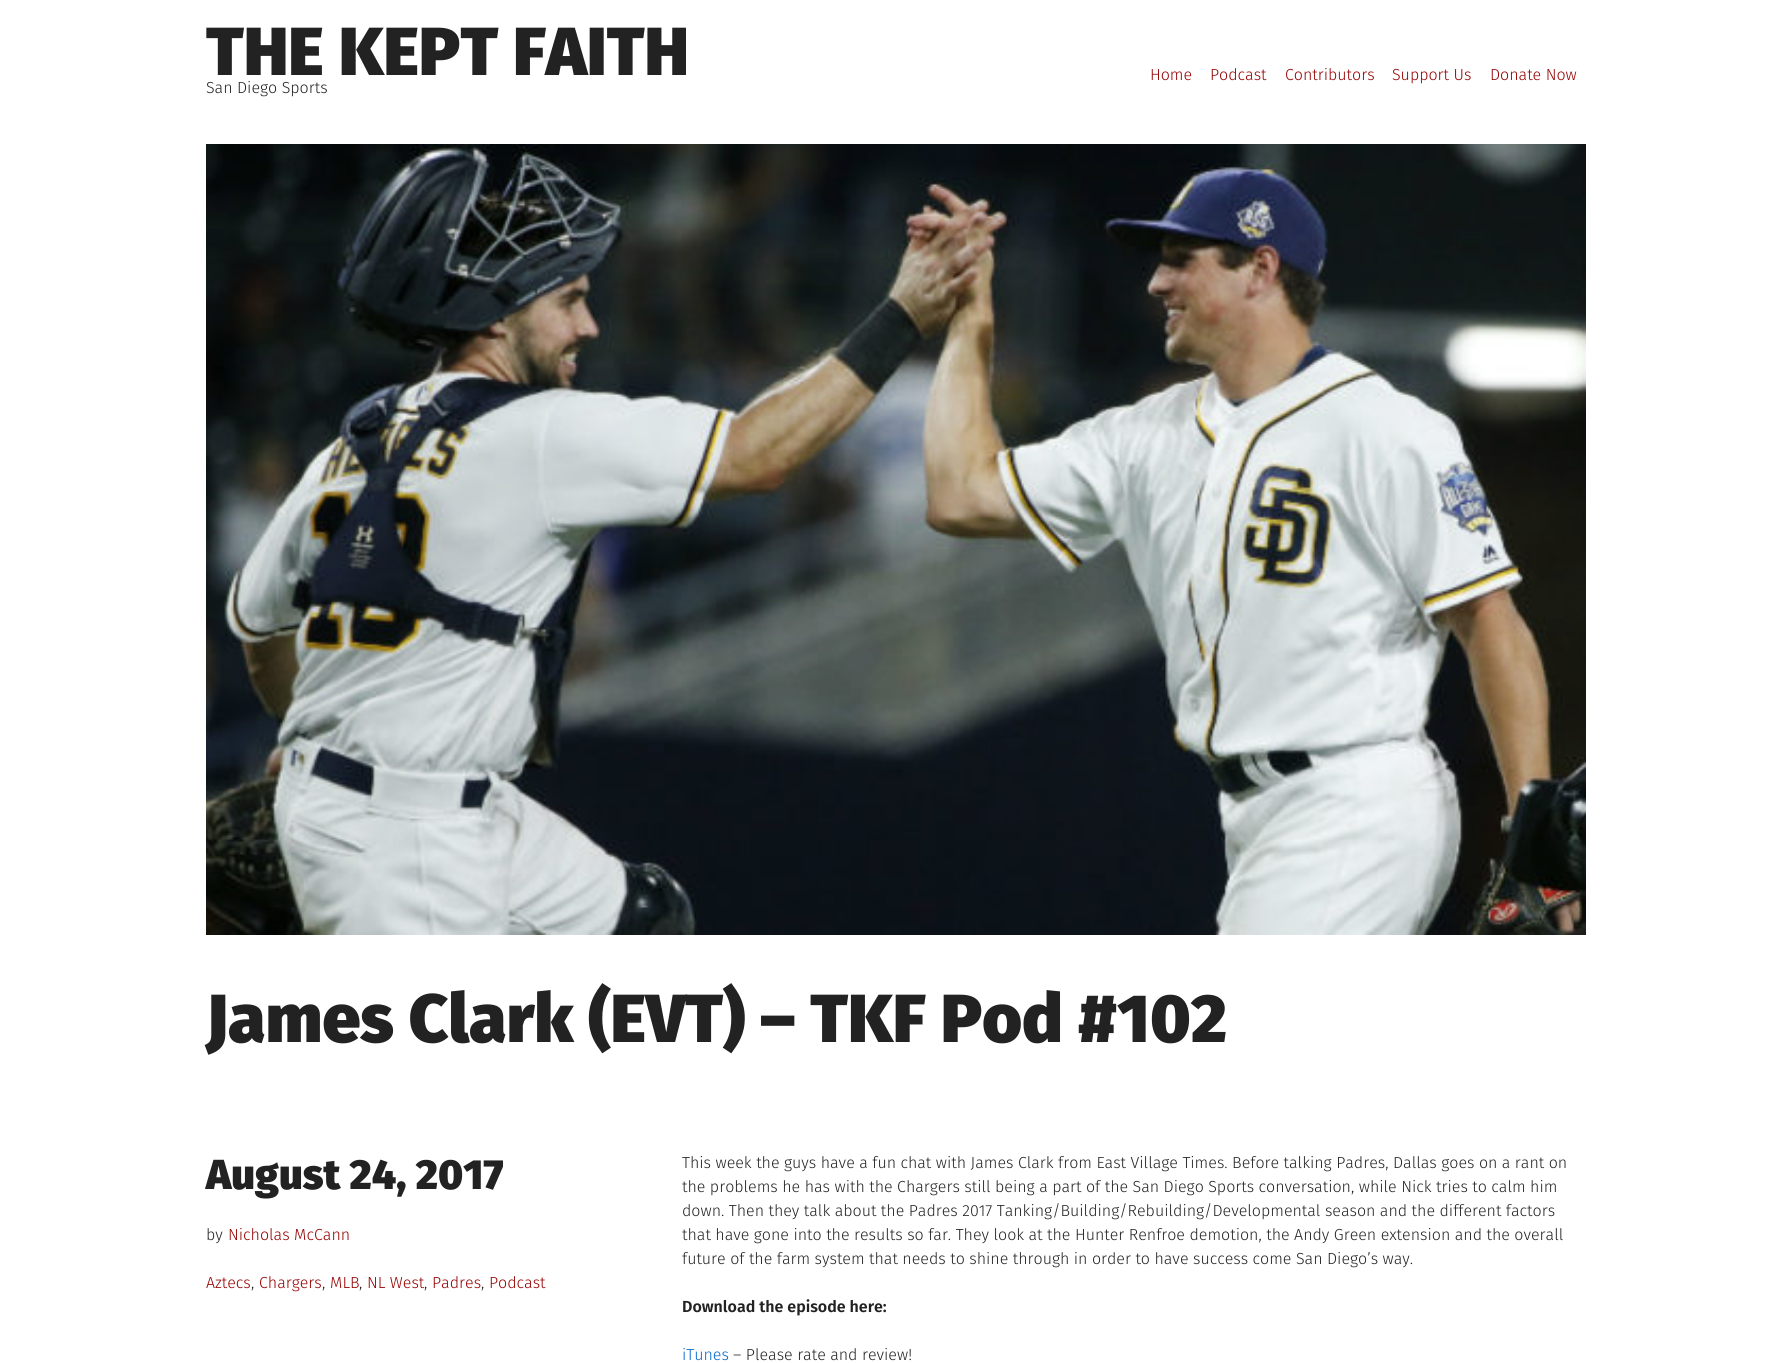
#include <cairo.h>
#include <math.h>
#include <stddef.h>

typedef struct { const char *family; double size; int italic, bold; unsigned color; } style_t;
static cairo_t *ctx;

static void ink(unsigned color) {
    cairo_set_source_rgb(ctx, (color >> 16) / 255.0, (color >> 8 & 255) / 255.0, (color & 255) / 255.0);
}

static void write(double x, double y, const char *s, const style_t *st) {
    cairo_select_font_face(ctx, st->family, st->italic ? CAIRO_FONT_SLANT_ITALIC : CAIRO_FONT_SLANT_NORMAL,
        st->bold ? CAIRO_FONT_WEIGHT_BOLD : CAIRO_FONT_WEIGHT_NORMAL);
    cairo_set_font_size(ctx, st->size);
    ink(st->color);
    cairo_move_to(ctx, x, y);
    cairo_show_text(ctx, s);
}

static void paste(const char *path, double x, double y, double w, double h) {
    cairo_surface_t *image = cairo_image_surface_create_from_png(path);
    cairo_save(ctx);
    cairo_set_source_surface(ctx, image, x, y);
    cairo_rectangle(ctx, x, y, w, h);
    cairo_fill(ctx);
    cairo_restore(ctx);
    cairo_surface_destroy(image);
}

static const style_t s1 = {"Fira Sans Black", 68, 0, 0, 0x222222};
static const style_t s2 = {"Fira Sans Light", 16, 0, 0, 0x222222};
static const style_t s3 = {"Fira Sans Light", 16, 0, 0, 0x940000};
static const style_t s4 = {"Fira Sans Black", 42, 0, 0, 0x222222};
static const style_t s5 = {"Fira Sans SemiBold", 16, 0, 0, 0x222222};
static const style_t s6 = {"Fira Sans Light", 16, 0, 0, 0x0066cc};

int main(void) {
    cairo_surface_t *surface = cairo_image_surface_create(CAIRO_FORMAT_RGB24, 1792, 1363);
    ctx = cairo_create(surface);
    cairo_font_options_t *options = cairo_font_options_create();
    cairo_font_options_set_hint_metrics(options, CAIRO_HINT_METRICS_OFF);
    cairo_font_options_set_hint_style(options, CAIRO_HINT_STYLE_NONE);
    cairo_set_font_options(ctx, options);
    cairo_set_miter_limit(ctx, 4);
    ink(0xffffff);
    cairo_paint(ctx);
    write(206, 75, "THE KEPT FAITH", &s1);
    write(206, 93, "San Diego Sports", &s2);
    write(1150, 80, "Home", &s3);
    write(1210, 80, "Podcast", &s3);
    write(1285, 80, "Contributors", &s3);
    write(1392, 80, "Support Us", &s3);
    write(1490, 80, "Donate Now", &s3);
    paste("pic1.png", 206, 144, 1380, 791);
    write(206, 1042, "James Clark (EVT) – TKF Pod #102", &s1);
    write(206, 1189, "August 24, 2017", &s4);
    write(206, 1240, "by", &s2);
    write(228, 1240, "Nicholas McCann", &s3);
    write(206, 1288, "Aztecs", &s3);
    write(251, 1288, ",", &s2);
    write(259, 1288, "Chargers", &s3);
    write(322, 1288, ",", &s2);
    write(330, 1288, "MLB", &s3);
    write(359, 1288, ",", &s2);
    write(367, 1288, "NL West", &s3);
    write(424, 1288, ",", &s2);
    write(432, 1288, "Padres", &s3);
    write(481, 1288, ",", &s2);
    write(489, 1288, "Podcast", &s3);
    write(682, 1168, "This week the guys have a fun chat with James Clark from East Village Times. Before talking Padres, Dallas goes on a rant on", &s2);
    write(682, 1192, "the problems he has with the Chargers still being a part of the San Diego Sports conversation, while Nick tries to calm him", &s2);
    write(682, 1216, "down. Then they talk about the Padres 2017 Tanking/Building/Rebuilding/Developmental season and the different factors", &s2);
    write(682, 1240, "that have gone into the results so far. They look at the Hunter Renfroe demotion, the Andy Green extension and the overall", &s2);
    write(682, 1264, "future of the farm system that needs to shine through in order to have success come San Diego’s way.", &s2);
    write(682, 1312, "Download the episode here:", &s5);
    write(682, 1360, "iTunes", &s6);
    write(733, 1360, "– Please rate and review!", &s2);
    cairo_surface_write_to_png(surface, "screenshot.png");
    cairo_font_options_destroy(options);
    cairo_destroy(ctx);
    cairo_surface_destroy(surface);
    return 0;
}
